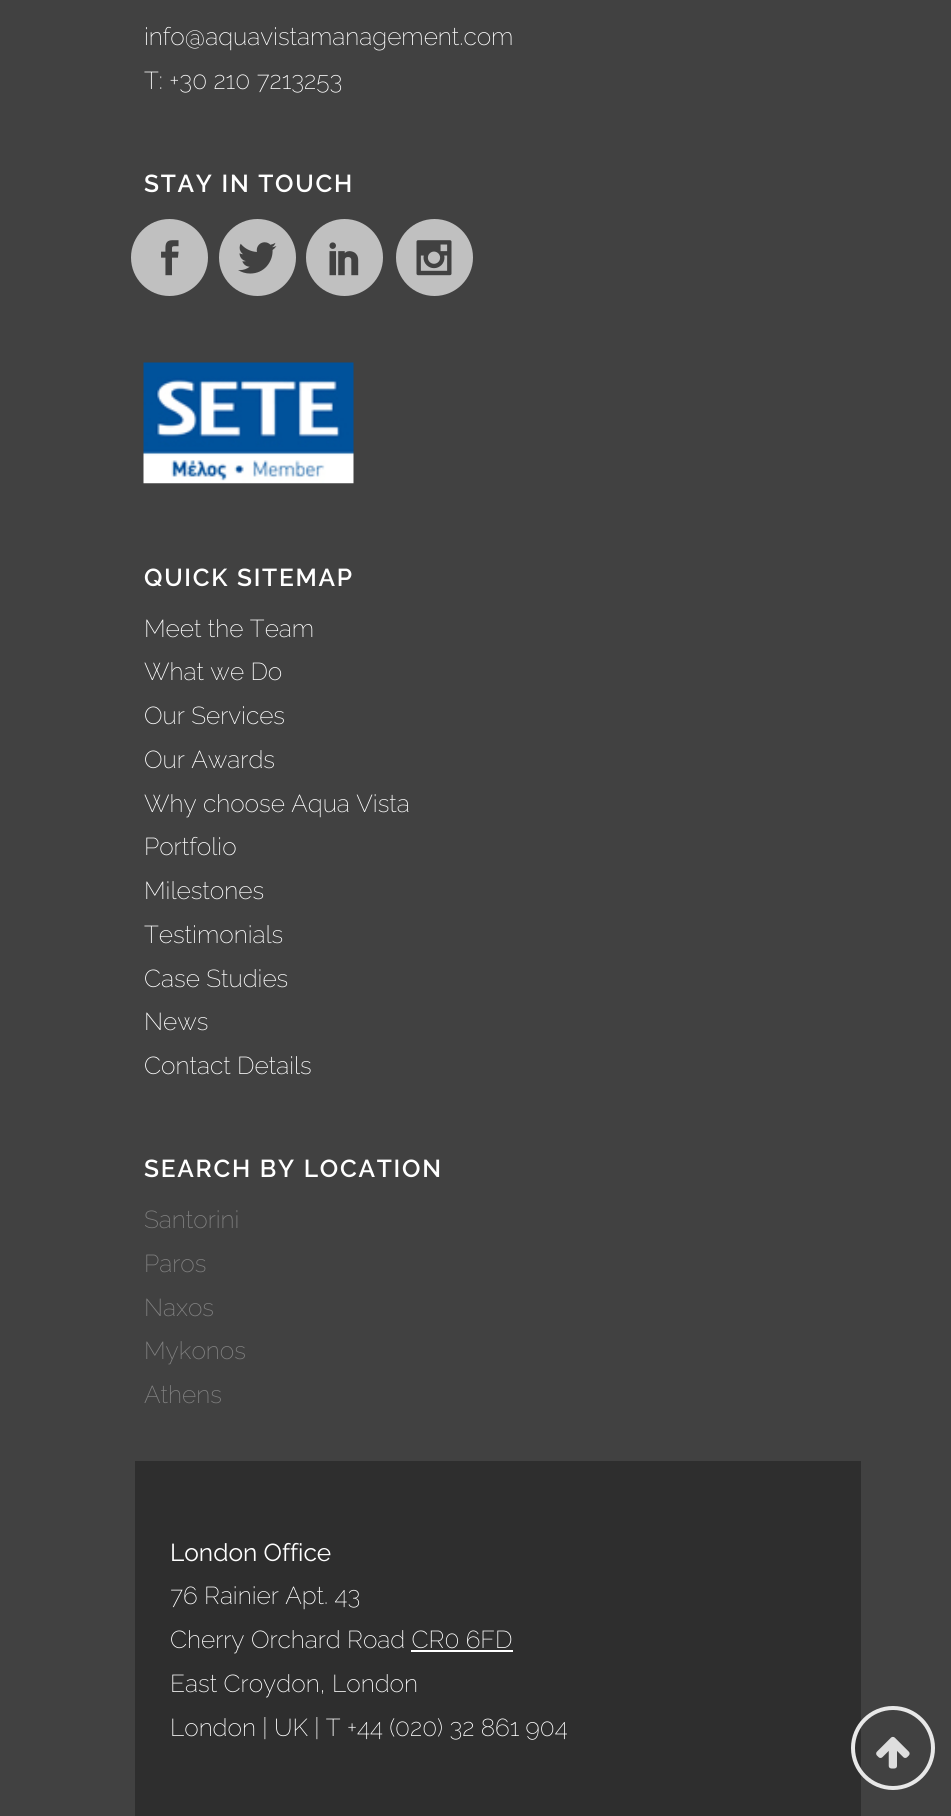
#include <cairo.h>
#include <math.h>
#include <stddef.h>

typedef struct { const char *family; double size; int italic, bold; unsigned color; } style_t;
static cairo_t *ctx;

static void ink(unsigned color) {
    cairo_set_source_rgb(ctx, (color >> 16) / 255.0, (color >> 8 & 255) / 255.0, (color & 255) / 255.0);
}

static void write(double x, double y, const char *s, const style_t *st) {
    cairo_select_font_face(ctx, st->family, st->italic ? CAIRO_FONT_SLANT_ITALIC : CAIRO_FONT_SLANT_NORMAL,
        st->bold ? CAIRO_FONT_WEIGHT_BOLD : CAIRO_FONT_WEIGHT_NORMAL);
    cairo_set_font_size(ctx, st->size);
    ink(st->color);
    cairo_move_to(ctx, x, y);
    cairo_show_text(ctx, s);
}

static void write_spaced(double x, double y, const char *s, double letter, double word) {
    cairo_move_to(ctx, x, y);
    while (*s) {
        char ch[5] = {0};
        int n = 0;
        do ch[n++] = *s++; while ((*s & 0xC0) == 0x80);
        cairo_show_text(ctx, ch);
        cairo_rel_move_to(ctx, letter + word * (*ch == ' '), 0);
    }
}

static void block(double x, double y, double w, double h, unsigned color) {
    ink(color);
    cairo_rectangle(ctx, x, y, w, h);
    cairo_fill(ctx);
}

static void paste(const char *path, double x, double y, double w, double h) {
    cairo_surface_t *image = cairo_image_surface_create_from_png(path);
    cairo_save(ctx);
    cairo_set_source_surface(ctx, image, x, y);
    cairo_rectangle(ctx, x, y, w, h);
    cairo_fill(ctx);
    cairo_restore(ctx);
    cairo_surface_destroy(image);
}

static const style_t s1 = {"Raleway ExtraLight", 24.5, 0, 0, 0xffffff};
static const style_t s2 = {"Raleway ExtraLight", 24.5, 0, 0, 0x818181};
static const style_t s3 = {"Raleway", 24.5, 0, 0, 0xffffff};

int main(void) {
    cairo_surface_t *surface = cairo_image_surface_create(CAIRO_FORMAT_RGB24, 951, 1816);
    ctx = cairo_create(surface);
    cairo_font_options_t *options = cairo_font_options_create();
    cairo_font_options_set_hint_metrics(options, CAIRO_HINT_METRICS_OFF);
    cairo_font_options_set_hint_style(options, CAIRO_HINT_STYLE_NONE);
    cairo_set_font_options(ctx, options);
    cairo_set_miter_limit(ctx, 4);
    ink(0x414141);
    cairo_paint(ctx);
    write(144, 45, "info@aquavistamanagement.com", &s1);
    write(144, 89, "T: +30 210 7213253", &s1);
    cairo_select_font_face(ctx, "Raleway SemiBold", CAIRO_FONT_SLANT_NORMAL, CAIRO_FONT_WEIGHT_NORMAL);
    write_spaced(144, 192, "STAY IN TOUCH", 1.75, 0);
    ink(0xc0c0c0);
    cairo_new_path(ctx);
    cairo_arc(ctx, 169.5, 257.5, 38.5, 0, 2 * M_PI);
    cairo_fill(ctx);
    paste("pic1.png", 161, 240, 18, 36);
    cairo_arc(ctx, 257.5, 257.5, 38.5, 0, 2 * M_PI);
    cairo_fill(ctx);
    paste("pic2.png", 238, 242, 39, 32);
    cairo_arc(ctx, 344.5, 257.5, 38.5, 0, 2 * M_PI);
    cairo_fill(ctx);
    paste("pic3.png", 329, 242, 30, 34);
    cairo_arc(ctx, 434.5, 257.5, 38.5, 0, 2 * M_PI);
    cairo_fill(ctx);
    paste("pic4.png", 416, 240, 36, 36);
    paste("pic5.png", 143, 362, 211, 122);
    ink(0xffffff);
    write_spaced(144, 586, "QUICK SITEMAP", 1.75, 0);
    write(144, 637, "Meet the Team", &s1);
    write(144, 680, "What we Do", &s1);
    write(144, 724, "Our Services", &s1);
    write(144, 768, "Our Awards", &s1);
    write(144, 812, "Why choose Aqua Vista", &s1);
    write(144, 855, "Portfolio", &s1);
    write(144, 899, "Milestones", &s1);
    write(144, 943, "Testimonials", &s1);
    write(144, 987, "Case Studies", &s1);
    write(144, 1030, "News", &s1);
    write(144, 1074, "Contact Details", &s1);
    cairo_select_font_face(ctx, "Raleway SemiBold", CAIRO_FONT_SLANT_NORMAL, CAIRO_FONT_WEIGHT_NORMAL);
    write_spaced(144, 1177, "SEARCH BY LOCATION", 1.75, 0);
    write(144, 1228, "Santorini", &s2);
    write(144, 1272, "Paros", &s2);
    write(144, 1316, "Naxos", &s2);
    write(144, 1359, "Mykonos", &s2);
    write(144, 1403, "Athens", &s2);
    block(135, 1461, 726, 355, 0x2e2e2e);
    write(170, 1561, "London Office", &s3);
    write(170, 1604, "76 Rainier Apt. 43", &s1);
    write(170, 1648, "Cherry Orchard Road CR0 6FD", &s1);
    block(411, 1650, 102, 2, 0xffffff);
    write(170, 1692, "East Croydon, London", &s1);
    write(170, 1736, "London | UK | T +44 (020) 32 861 904", &s1);
    cairo_new_path(ctx);
    cairo_arc(ctx, 893, 1748, 40, 0, 2 * M_PI);
    ink(0xe8e8e8);
    cairo_set_line_width(ctx, 4);
    cairo_stroke(ctx);
    paste("pic6.png", 876, 1736, 34, 33);
    cairo_surface_write_to_png(surface, "screenshot.png");
    cairo_font_options_destroy(options);
    cairo_destroy(ctx);
    cairo_surface_destroy(surface);
    return 0;
}
